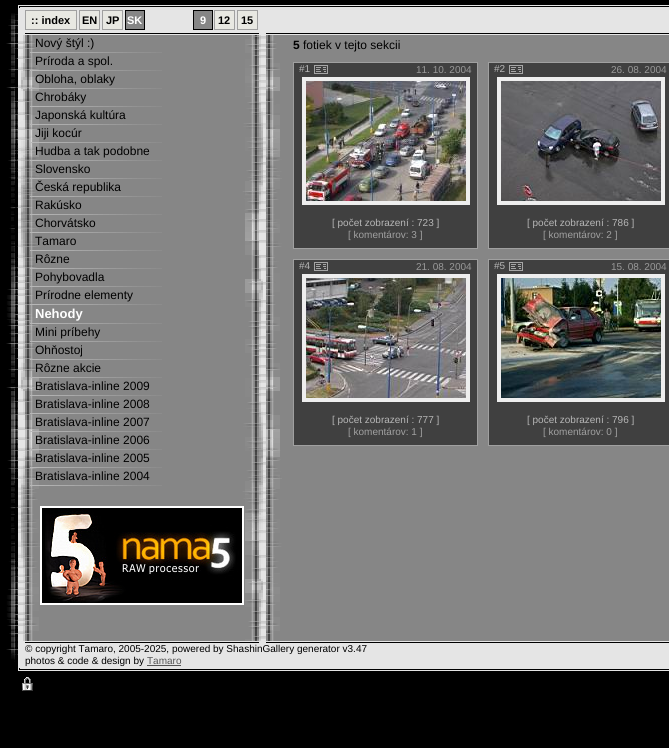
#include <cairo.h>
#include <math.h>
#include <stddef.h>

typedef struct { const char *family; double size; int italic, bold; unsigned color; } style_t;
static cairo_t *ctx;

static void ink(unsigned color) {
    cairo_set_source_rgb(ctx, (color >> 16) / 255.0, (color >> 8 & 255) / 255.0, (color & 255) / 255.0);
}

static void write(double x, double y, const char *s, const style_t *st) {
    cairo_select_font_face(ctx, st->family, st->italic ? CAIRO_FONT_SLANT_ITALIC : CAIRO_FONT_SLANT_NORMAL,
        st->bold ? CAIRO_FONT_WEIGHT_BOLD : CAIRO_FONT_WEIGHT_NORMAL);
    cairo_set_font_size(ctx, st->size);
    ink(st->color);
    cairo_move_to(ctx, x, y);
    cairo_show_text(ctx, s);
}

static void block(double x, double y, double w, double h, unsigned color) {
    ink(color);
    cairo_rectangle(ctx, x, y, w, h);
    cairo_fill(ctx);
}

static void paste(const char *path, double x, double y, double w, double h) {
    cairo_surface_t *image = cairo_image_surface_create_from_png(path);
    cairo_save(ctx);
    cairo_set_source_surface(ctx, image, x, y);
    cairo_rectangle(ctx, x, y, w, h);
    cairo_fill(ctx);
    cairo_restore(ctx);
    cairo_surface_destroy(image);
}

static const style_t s1 = {"Liberation Sans", 11, 0, 1, 0x000000};
static const style_t s2 = {"Liberation Sans", 11, 0, 1, 0xffffff};
static const style_t s3 = {"Liberation Sans", 12, 0, 0, 0x000000};
static const style_t s4 = {"Liberation Sans", 13, 0, 1, 0xffffff};
static const style_t s5 = {"Liberation Sans", 12, 0, 1, 0x000000};
static const style_t s6 = {"Liberation Sans", 10, 0, 0, 0xb6b6b6};
static const style_t s7 = {"Liberation Sans", 10, 0, 0, 0x999999};
static const style_t s8 = {"Liberation Sans", 10, 0, 0, 0xa0a0a0};
static const style_t s9 = {"Liberation Sans", 10, 0, 0, 0x000000};
static const style_t s10 = {"Liberation Sans", 10, 0, 0, 0x555555};

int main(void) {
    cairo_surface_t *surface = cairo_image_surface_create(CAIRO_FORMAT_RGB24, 669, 748);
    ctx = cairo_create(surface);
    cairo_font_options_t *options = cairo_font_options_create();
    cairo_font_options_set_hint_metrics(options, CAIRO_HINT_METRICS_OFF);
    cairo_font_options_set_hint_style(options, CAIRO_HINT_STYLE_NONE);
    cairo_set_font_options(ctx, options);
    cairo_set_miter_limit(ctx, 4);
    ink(0x000000);
    cairo_paint(ctx);
    paste("pic1.png", 8, 5, 661, 30);
    ink(0xe8e8e2);
    cairo_rectangle(ctx, 25.5, 10.5, 51, 19);
    cairo_fill_preserve(ctx);
    ink(0xa0a0a0);
    cairo_set_line_width(ctx, 1);
    cairo_stroke(ctx);
    write(31, 24, ":: index", &s1);
    ink(0xe8e8e2);
    cairo_rectangle(ctx, 79.5, 10.5, 20, 19);
    cairo_fill_preserve(ctx);
    ink(0xa0a0a0);
    cairo_stroke(ctx);
    write(82, 24, "EN", &s1);
    ink(0xe8e8e2);
    cairo_rectangle(ctx, 102.5, 10.5, 20, 19);
    cairo_fill_preserve(ctx);
    ink(0xa0a0a0);
    cairo_stroke(ctx);
    write(106, 24, "JP", &s1);
    ink(0x868686);
    cairo_rectangle(ctx, 125.5, 10.5, 19, 19);
    cairo_fill_preserve(ctx);
    ink(0x000000);
    cairo_stroke(ctx);
    write(127, 24, "SK", &s2);
    ink(0x868686);
    cairo_rectangle(ctx, 193.5, 10.5, 19, 19);
    cairo_fill_preserve(ctx);
    ink(0x000000);
    cairo_stroke(ctx);
    write(200, 24, "9", &s2);
    ink(0xe8e8e2);
    cairo_rectangle(ctx, 214.5, 10.5, 20, 19);
    cairo_fill_preserve(ctx);
    ink(0xa0a0a0);
    cairo_stroke(ctx);
    write(218, 24, "12", &s1);
    ink(0xe8e8e2);
    cairo_rectangle(ctx, 237.5, 10.5, 20, 19);
    cairo_fill_preserve(ctx);
    ink(0xa0a0a0);
    cairo_stroke(ctx);
    write(241, 24, "15", &s1);
    block(282, 35, 387, 606, 0x868686);
    paste("pic2.png", 0, 35, 282, 606);
    write(35, 47, "Nový štýl :)", &s3);
    paste("pic3.png", 30, 52, 132, 1);
    write(35, 65, "Príroda a spol.", &s3);
    paste("pic3.png", 30, 70, 132, 1);
    write(35, 83, "Obloha, oblaky", &s3);
    paste("pic3.png", 30, 88, 132, 1);
    write(35, 101, "Chrobáky", &s3);
    paste("pic3.png", 30, 106, 132, 1);
    write(35, 119, "Japonská kultúra", &s3);
    paste("pic3.png", 30, 124, 132, 1);
    write(35, 137, "Jiji kocúr", &s3);
    paste("pic4.png", 31, 142, 131, 1);
    write(35, 155, "Hudba a tak podobne", &s3);
    paste("pic3.png", 30, 160, 132, 1);
    write(35, 173, "Slovensko", &s3);
    paste("pic3.png", 30, 178, 132, 1);
    write(35, 191, "Česká republika", &s3);
    paste("pic3.png", 30, 196, 132, 1);
    write(35, 209, "Rakúsko", &s3);
    paste("pic3.png", 30, 214, 132, 1);
    write(35, 227, "Chorvátsko", &s3);
    paste("pic3.png", 30, 232, 132, 1);
    write(35, 245, "Tamaro", &s3);
    paste("pic3.png", 30, 250, 132, 1);
    write(35, 263, "Rôzne", &s3);
    paste("pic3.png", 30, 268, 132, 1);
    write(35, 281, "Pohybovadla", &s3);
    paste("pic3.png", 30, 286, 132, 1);
    write(35, 299, "Prírodne elementy", &s3);
    paste("pic3.png", 30, 304, 132, 1);
    write(35, 318, "Nehody", &s4);
    paste("pic3.png", 30, 323, 132, 1);
    write(35, 336, "Mini príbehy", &s3);
    paste("pic3.png", 30, 341, 132, 1);
    write(35, 354, "Ohňostoj", &s3);
    paste("pic3.png", 30, 359, 132, 1);
    write(35, 372, "Rôzne akcie", &s3);
    paste("pic4.png", 31, 377, 131, 1);
    write(35, 390, "Bratislava-inline 2009", &s3);
    paste("pic3.png", 30, 395, 132, 1);
    write(35, 408, "Bratislava-inline 2008", &s3);
    paste("pic3.png", 30, 413, 132, 1);
    write(35, 426, "Bratislava-inline 2007", &s3);
    paste("pic3.png", 30, 431, 132, 1);
    write(35, 444, "Bratislava-inline 2006", &s3);
    paste("pic3.png", 30, 449, 132, 1);
    write(35, 462, "Bratislava-inline 2005", &s3);
    paste("pic3.png", 30, 467, 132, 1);
    write(35, 480, "Bratislava-inline 2004", &s3);
    paste("pic3.png", 30, 485, 132, 1);
    cairo_rectangle(ctx, 41, 507, 202, 97);
    ink(0xffffff);
    cairo_set_line_width(ctx, 2);
    cairo_stroke(ctx);
    paste("pic5.png", 42, 508, 200, 95);
    write(293, 49, "5", &s5);
    write(303, 49, "fotiek v tejto sekcii", &s3);
    ink(0x404040);
    cairo_rectangle(ctx, 293.5, 62.5, 184, 186);
    cairo_fill_preserve(ctx);
    ink(0xa0a0a0);
    cairo_set_line_width(ctx, 1);
    cairo_stroke(ctx);
    write(299, 72, "#1", &s6);
    paste("pic6.png", 314, 65, 14, 9);
    write(416, 73, "11. 10. 2004", &s7);
    cairo_rectangle(ctx, 304, 79, 164, 124);
    ink(0xeeeeee);
    cairo_set_line_width(ctx, 4);
    cairo_stroke(ctx);
    paste("pic7.png", 306, 81, 160, 120);
    write(332, 226, "[ počet zobrazení : 723 ]", &s6);
    write(348, 238, "[ komentárov: 3 ]", &s8);
    ink(0x404040);
    cairo_rectangle(ctx, 488.5, 62.5, 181, 186);
    cairo_fill_preserve(ctx);
    ink(0xa0a0a0);
    cairo_set_line_width(ctx, 1);
    cairo_stroke(ctx);
    write(494, 72, "#2", &s6);
    paste("pic6.png", 509, 65, 14, 9);
    write(611, 73, "26. 08. 2004", &s7);
    cairo_rectangle(ctx, 499, 79, 164, 124);
    ink(0xeeeeee);
    cairo_set_line_width(ctx, 4);
    cairo_stroke(ctx);
    paste("pic8.png", 501, 81, 160, 120);
    write(527, 226, "[ počet zobrazení : 786 ]", &s6);
    write(543, 238, "[ komentárov: 2 ]", &s8);
    ink(0x404040);
    cairo_rectangle(ctx, 293.5, 259.5, 184, 186);
    cairo_fill_preserve(ctx);
    ink(0xa0a0a0);
    cairo_set_line_width(ctx, 1);
    cairo_stroke(ctx);
    write(299, 269, "#4", &s6);
    paste("pic6.png", 314, 262, 14, 9);
    write(416, 270, "21. 08. 2004", &s7);
    cairo_rectangle(ctx, 304, 276, 164, 124);
    ink(0xeeeeee);
    cairo_set_line_width(ctx, 4);
    cairo_stroke(ctx);
    paste("pic9.png", 306, 278, 160, 120);
    write(332, 423, "[ počet zobrazení : 777 ]", &s6);
    write(348, 435, "[ komentárov: 1 ]", &s8);
    ink(0x404040);
    cairo_rectangle(ctx, 488.5, 259.5, 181, 186);
    cairo_fill_preserve(ctx);
    ink(0xa0a0a0);
    cairo_set_line_width(ctx, 1);
    cairo_stroke(ctx);
    write(494, 269, "#5", &s6);
    paste("pic6.png", 509, 262, 14, 9);
    write(611, 270, "15. 08. 2004", &s7);
    cairo_rectangle(ctx, 499, 276, 164, 124);
    ink(0xeeeeee);
    cairo_set_line_width(ctx, 4);
    cairo_stroke(ctx);
    paste("pic10.png", 501, 278, 160, 120);
    write(527, 423, "[ počet zobrazení : 796 ]", &s6);
    write(543, 435, "[ komentárov: 0 ]", &s8);
    paste("pic11.png", 6, 641, 663, 30);
    write(25, 652, "© copyright Tamaro, 2005-2025, powered by ShashinGallery generator v3.47", &s9);
    write(25, 664, "photos & code & design by", &s9);
    write(147, 664, "Tamaro", &s10);
    block(147, 665, 34, 1, 0x555555);
    paste("pic12.png", 22, 677, 11, 14);
    cairo_surface_write_to_png(surface, "screenshot.png");
    cairo_font_options_destroy(options);
    cairo_destroy(ctx);
    cairo_surface_destroy(surface);
    return 0;
}
